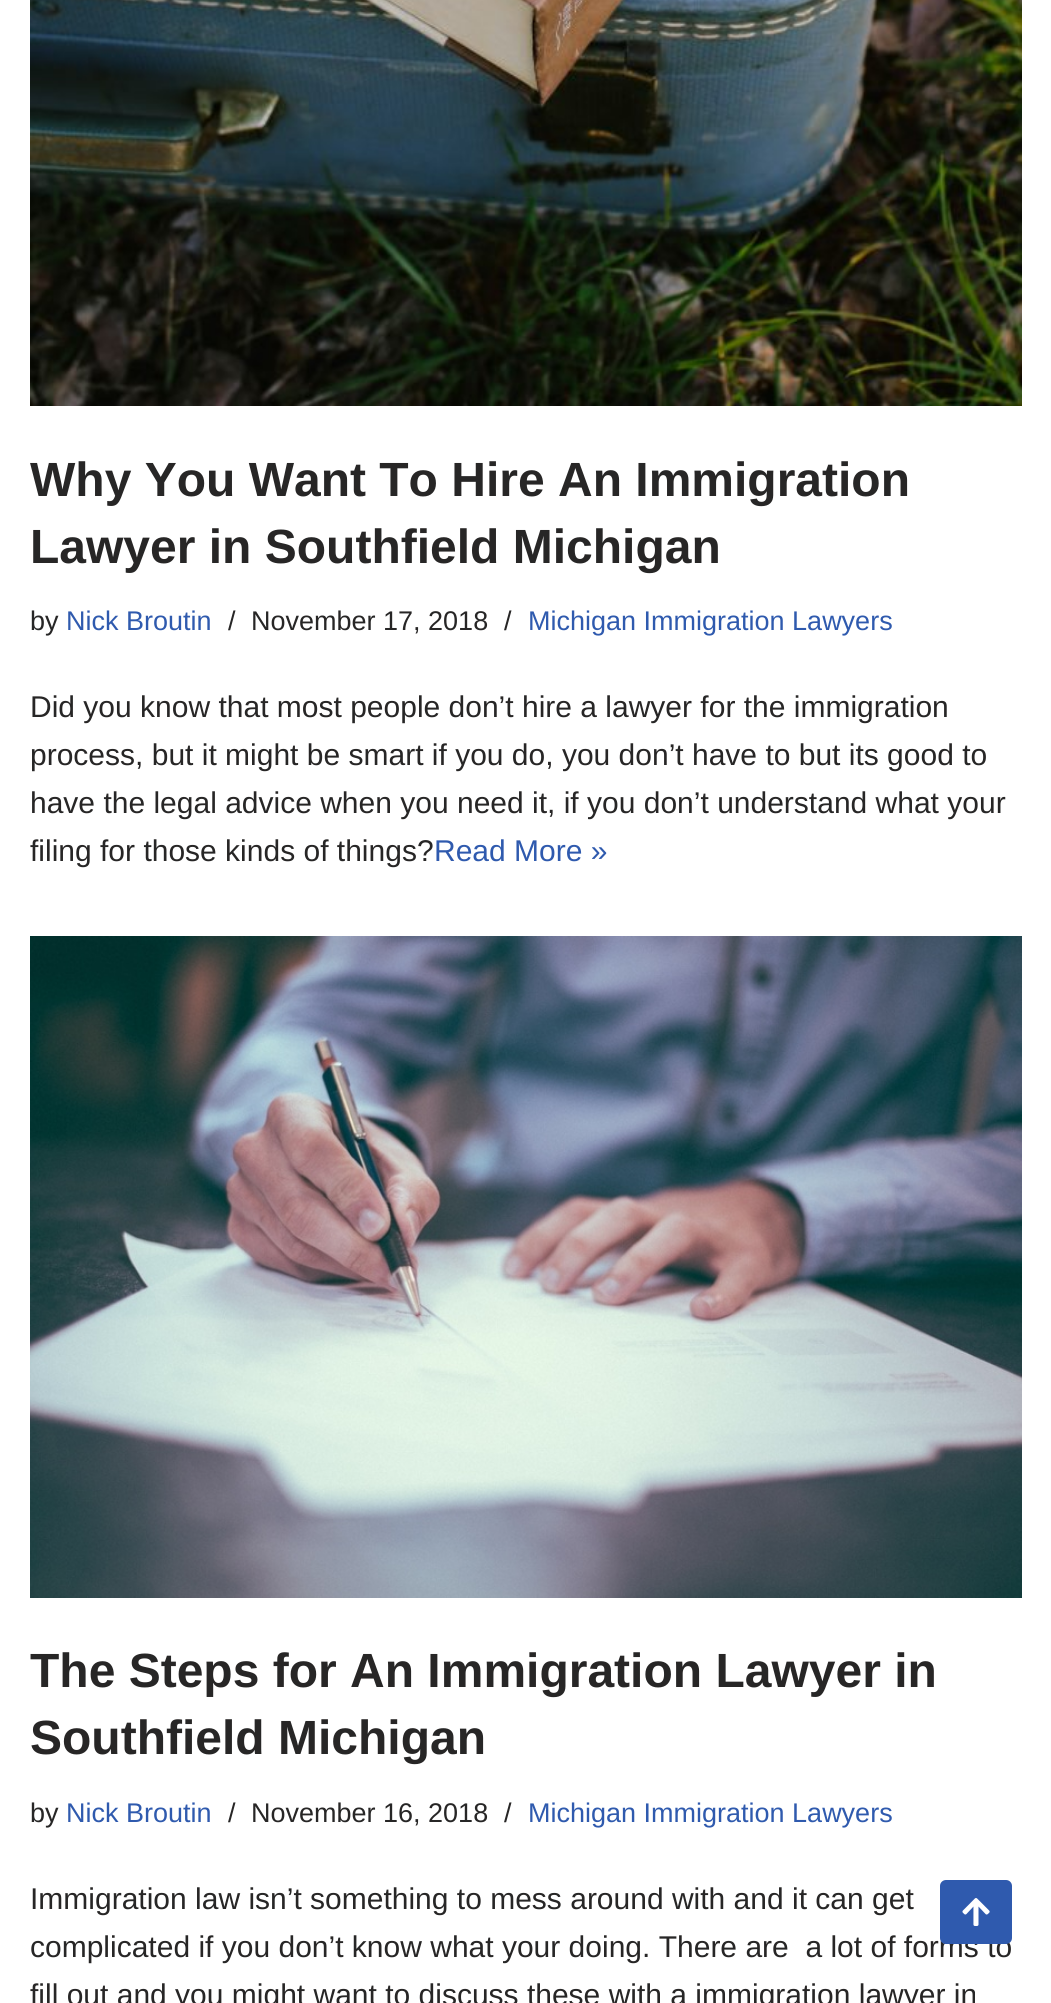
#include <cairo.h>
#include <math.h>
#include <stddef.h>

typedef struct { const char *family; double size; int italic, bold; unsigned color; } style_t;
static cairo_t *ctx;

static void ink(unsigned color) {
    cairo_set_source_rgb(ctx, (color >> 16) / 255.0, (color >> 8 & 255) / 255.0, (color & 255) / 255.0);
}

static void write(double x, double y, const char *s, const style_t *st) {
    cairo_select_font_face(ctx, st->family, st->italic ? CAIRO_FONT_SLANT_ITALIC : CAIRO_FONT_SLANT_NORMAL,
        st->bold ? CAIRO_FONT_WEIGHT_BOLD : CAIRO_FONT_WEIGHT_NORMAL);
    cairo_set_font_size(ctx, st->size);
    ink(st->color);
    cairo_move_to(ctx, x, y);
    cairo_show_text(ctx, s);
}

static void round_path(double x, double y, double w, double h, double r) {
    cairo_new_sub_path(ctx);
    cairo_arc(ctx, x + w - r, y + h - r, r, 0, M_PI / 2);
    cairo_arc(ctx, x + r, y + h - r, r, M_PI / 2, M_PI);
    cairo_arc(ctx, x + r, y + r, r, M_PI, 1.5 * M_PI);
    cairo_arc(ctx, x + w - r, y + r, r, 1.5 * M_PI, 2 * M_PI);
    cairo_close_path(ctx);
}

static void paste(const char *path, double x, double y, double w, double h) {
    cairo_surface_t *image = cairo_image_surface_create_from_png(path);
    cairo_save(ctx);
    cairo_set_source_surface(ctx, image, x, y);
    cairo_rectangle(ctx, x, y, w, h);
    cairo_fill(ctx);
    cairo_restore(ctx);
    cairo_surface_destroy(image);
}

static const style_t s1 = {"Liberation Sans", 48, 0, 1, 0x272626};
static const style_t s2 = {"Liberation Sans", 27, 0, 0, 0x272626};
static const style_t s3 = {"Liberation Sans", 27, 0, 0, 0x2f5aae};
static const style_t s4 = {"Liberation Sans", 30, 0, 0, 0x272626};
static const style_t s5 = {"Liberation Sans", 30, 0, 0, 0x2f5aae};

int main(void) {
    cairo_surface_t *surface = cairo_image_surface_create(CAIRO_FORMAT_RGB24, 1051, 2003);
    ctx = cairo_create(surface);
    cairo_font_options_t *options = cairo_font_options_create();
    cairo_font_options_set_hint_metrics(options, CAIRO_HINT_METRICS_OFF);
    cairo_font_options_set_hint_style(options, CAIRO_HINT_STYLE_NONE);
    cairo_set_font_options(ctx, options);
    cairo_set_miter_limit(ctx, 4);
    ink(0xffffff);
    cairo_paint(ctx);
    paste("pic1.png", 30, 0, 992, 406);
    write(30, 496, "Why You Want To Hire An Immigration", &s1);
    write(30, 563, "Lawyer in Southfield Michigan", &s1);
    write(30, 630, "by", &s2);
    write(66, 630, "Nick Broutin", &s3);
    write(228, 630, "/", &s2);
    write(251, 630, "November 17, 2018", &s2);
    write(504, 630, "/", &s2);
    write(528, 630, "Michigan Immigration Lawyers", &s3);
    write(30, 717, "Did you know that most people don’t hire a lawyer for the immigration", &s4);
    write(30, 765, "process, but it might be smart if you do, you don’t have to but its good to", &s4);
    write(30, 813, "have the legal advice when you need it, if you don’t understand what your", &s4);
    write(30, 861, "filing for those kinds of things?", &s4);
    write(434, 861, "Read More »", &s5);
    paste("pic2.png", 30, 936, 992, 662);
    write(30, 1687, "The Steps for An Immigration Lawyer in", &s1);
    write(30, 1754, "Southfield Michigan", &s1);
    write(30, 1822, "by", &s2);
    write(66, 1822, "Nick Broutin", &s3);
    write(228, 1822, "/", &s2);
    write(251, 1822, "November 16, 2018", &s2);
    write(504, 1822, "/", &s2);
    write(528, 1822, "Michigan Immigration Lawyers", &s3);
    write(30, 1909, "Immigration law isn’t something to mess around with and it can get", &s4);
    write(30, 1957, "complicated if you don’t know what your doing. There are  a lot of forms to", &s4);
    write(30, 2005, "fill out and you might want to discuss these with a immigration lawyer in", &s4);
    ink(0x2f5aae);
    round_path(940, 1880, 72, 64, 6);
    cairo_fill(ctx);
    paste("pic3.png", 962, 1898, 28, 28);
    cairo_surface_write_to_png(surface, "screenshot.png");
    cairo_font_options_destroy(options);
    cairo_destroy(ctx);
    cairo_surface_destroy(surface);
    return 0;
}
